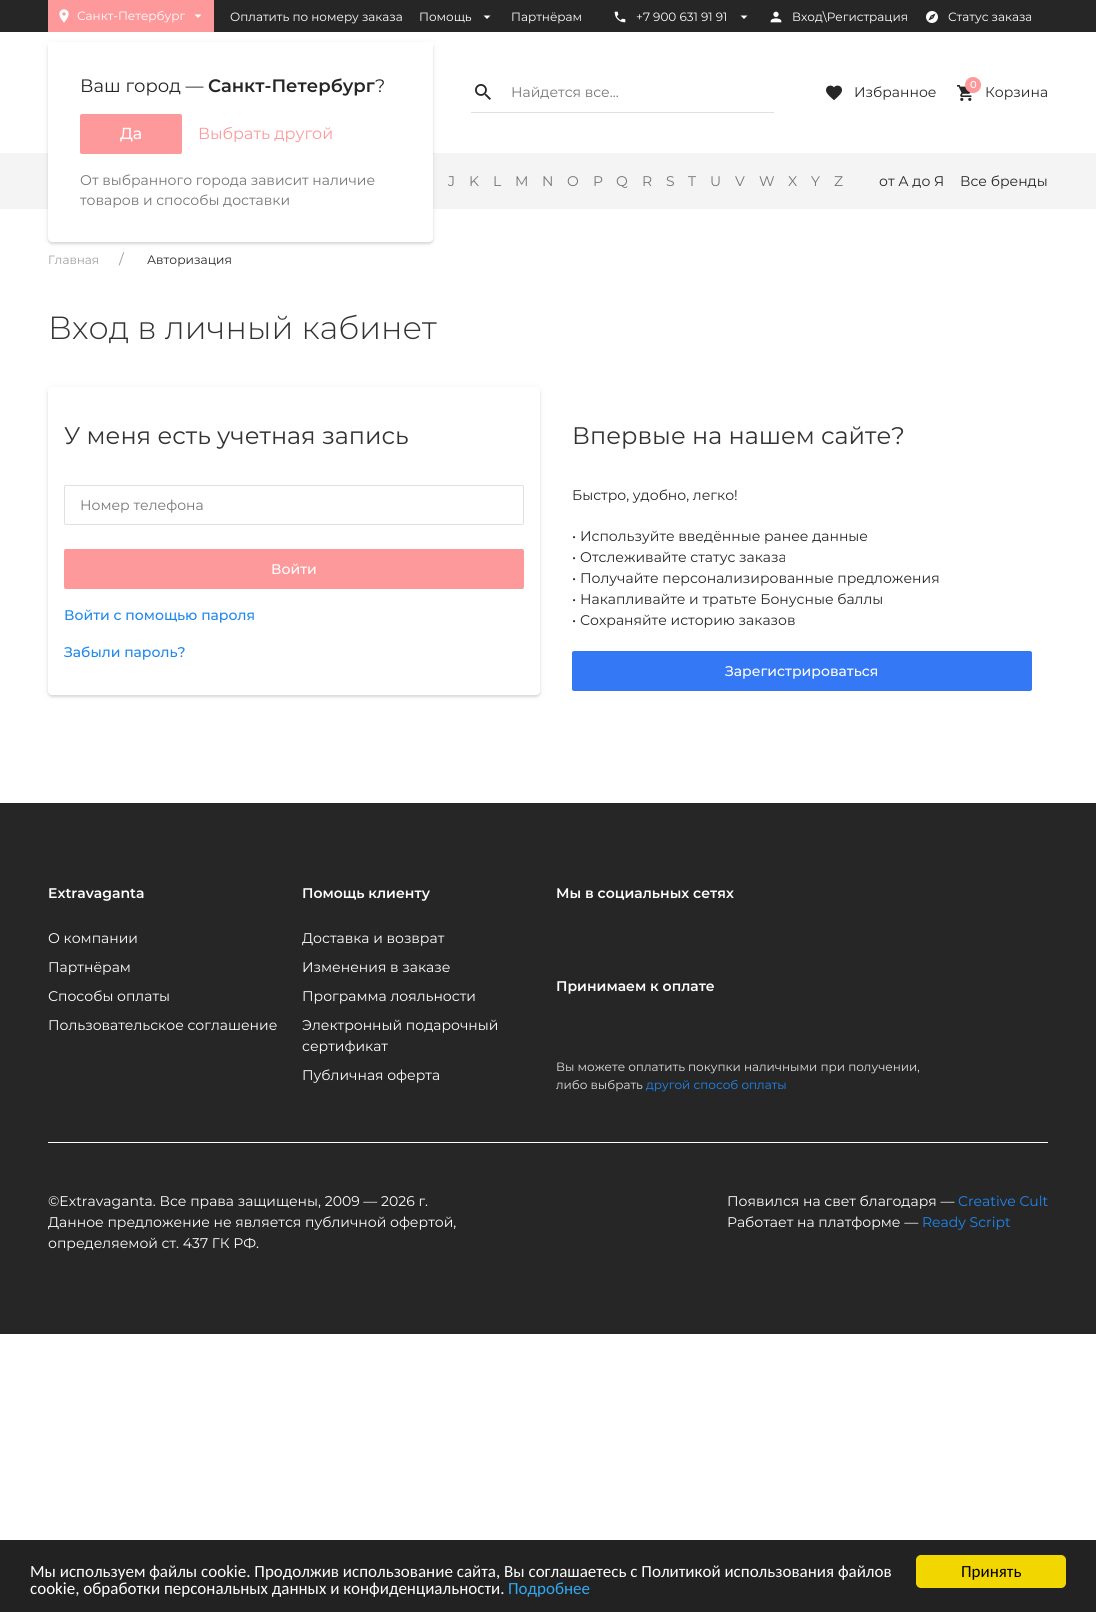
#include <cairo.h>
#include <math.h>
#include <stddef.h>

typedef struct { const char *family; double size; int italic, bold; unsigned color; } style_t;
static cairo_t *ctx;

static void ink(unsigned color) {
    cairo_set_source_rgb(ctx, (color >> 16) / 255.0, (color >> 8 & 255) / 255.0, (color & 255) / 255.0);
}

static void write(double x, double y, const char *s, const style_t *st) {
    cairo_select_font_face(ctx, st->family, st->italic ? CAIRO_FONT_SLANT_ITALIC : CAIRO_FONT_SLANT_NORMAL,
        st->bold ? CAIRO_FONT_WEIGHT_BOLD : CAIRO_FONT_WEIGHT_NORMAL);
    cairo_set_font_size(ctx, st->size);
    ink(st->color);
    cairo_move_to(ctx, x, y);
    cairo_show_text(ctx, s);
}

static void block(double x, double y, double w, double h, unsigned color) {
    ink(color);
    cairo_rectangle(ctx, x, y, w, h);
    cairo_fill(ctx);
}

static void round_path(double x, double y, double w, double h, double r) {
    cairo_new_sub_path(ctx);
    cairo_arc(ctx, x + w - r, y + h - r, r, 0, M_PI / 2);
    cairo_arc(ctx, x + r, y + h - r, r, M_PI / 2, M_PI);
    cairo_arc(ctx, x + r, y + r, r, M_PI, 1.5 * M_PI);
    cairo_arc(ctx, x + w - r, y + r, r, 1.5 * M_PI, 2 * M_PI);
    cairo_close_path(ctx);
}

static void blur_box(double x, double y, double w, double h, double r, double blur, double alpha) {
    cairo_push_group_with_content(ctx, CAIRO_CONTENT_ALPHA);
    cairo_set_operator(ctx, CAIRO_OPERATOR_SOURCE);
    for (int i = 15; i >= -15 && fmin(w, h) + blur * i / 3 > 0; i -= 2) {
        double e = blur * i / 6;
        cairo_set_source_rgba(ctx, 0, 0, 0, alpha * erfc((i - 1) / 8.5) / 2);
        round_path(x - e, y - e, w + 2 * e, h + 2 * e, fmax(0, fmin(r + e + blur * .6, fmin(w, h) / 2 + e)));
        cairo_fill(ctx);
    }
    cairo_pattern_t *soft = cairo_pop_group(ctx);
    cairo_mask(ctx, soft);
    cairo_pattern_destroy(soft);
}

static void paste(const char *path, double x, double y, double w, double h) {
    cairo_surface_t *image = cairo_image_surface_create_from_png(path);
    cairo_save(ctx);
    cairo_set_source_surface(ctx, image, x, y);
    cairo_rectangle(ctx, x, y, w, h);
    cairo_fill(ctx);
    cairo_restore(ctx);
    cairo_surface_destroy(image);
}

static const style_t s1 = {"Montserrat", 12, 0, 0, 0xffffff};
static const style_t s2 = {"Montserrat", 18, 0, 0, 0x262626};
static const style_t s3 = {"Montserrat SemiBold", 18, 0, 0, 0x262626};
static const style_t s4 = {"Montserrat Medium", 16, 0, 0, 0xffffff};
static const style_t s5 = {"Montserrat", 16, 0, 0, 0xfd999a};
static const style_t s6 = {"Montserrat", 14, 0, 0, 0x767676};
static const style_t s7 = {"Montserrat", 14, 0, 0, 0x262626};
static const style_t s8 = {"Montserrat Medium", 10, 0, 0, 0xffffff};
static const style_t s9 = {"Montserrat", 12, 0, 0, 0xa0a0a0};
static const style_t s10 = {"Montserrat", 14, 0, 0, 0x999999};
static const style_t s11 = {"Montserrat", 12.25, 0, 0, 0x262626};
static const style_t s12 = {"Montserrat Light", 32, 0, 0, 0x333333};
static const style_t s13 = {"Montserrat", 24, 0, 0, 0x333333};
static const style_t s14 = {"Montserrat Medium", 14, 0, 0, 0xffffff};
static const style_t s15 = {"Montserrat Medium", 14, 0, 0, 0x1e87f0};
static const style_t s16 = {"Montserrat SemiBold", 14, 0, 0, 0xffffff};
static const style_t s17 = {"Montserrat", 14, 0, 0, 0xffffff};
static const style_t s18 = {"Montserrat", 12, 0, 0, 0xe0e0e0};
static const style_t s19 = {"Montserrat", 12, 0, 0, 0x1e87f0};
static const style_t s20 = {"Montserrat", 14, 0, 0, 0x1e87f0};
static const style_t s21 = {"Carlito", 17, 0, 0, 0xffffff};
static const style_t s22 = {"Carlito", 17, 0, 0, 0x31a8f0};
static const style_t s23 = {"Carlito", 17, 0, 0, 0x000000};

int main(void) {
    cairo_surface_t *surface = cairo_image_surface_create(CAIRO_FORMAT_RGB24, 1096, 1612);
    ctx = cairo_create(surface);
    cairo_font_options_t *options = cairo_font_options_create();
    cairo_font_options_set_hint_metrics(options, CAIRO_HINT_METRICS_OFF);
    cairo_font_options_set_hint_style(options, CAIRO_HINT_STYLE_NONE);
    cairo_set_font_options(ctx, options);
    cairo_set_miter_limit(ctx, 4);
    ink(0xffffff);
    cairo_paint(ctx);
    block(0, 0, 1096, 32, 0x262626);
    block(48, 0, 166, 32, 0xfd999a);
    paste("pic1.png", 59, 9, 10, 14);
    write(77, 20, "Санкт-Петербург", &s1);
    cairo_new_path(ctx);
    cairo_move_to(ctx, 194.5, 14.5);
    cairo_line_to(ctx, 198, 18);
    cairo_line_to(ctx, 201.5, 14.5);
    cairo_close_path(ctx);
    cairo_fill(ctx);
    block(0, 153, 1096, 56, 0xf4f4f4);
    ink(0x000000);
    blur_box(48, 44, 385, 200, 4, 1, 0.12);
    blur_box(48, 43, 385, 200, 4, 4, 0.06);
    ink(0xffffff);
    cairo_new_path(ctx);
    cairo_move_to(ctx, 48, 42);
    cairo_line_to(ctx, 433, 42);
    cairo_line_to(ctx, 433, 238);
    cairo_curve_to(ctx, 433, 240, 431, 242, 429, 242);
    cairo_line_to(ctx, 52, 242);
    cairo_curve_to(ctx, 50, 242, 48, 240, 48, 238);
    cairo_close_path(ctx);
    cairo_fill(ctx);
    write(80, 92, "Ваш город —", &s2);
    write(208, 92, "Санкт-Петербург", &s3);
    write(375, 92, "?", &s2);
    ink(0xfd999a);
    round_path(80, 114, 102, 40, 2);
    cairo_fill(ctx);
    write(120, 139, "Да", &s4);
    write(198, 139, "Выбрать другой", &s5);
    write(80, 185, "От выбранного города зависит наличие", &s6);
    write(80, 205, "товаров и способы доставки", &s6);
    write(230, 21, "Оплатить по номеру заказа", &s1);
    write(419, 21, "Помощь", &s1);
    cairo_new_path(ctx);
    cairo_move_to(ctx, 483.5, 15.5);
    cairo_line_to(ctx, 487, 19);
    cairo_line_to(ctx, 490.5, 15.5);
    cairo_close_path(ctx);
    cairo_fill(ctx);
    write(511, 21, "Партнёрам", &s1);
    paste("pic2.png", 614, 11, 12, 12);
    write(636, 21, "+7 900 631 91 91", &s1);
    cairo_new_path(ctx);
    cairo_move_to(ctx, 740.5, 15.5);
    cairo_line_to(ctx, 744, 19);
    cairo_line_to(ctx, 747.5, 15.5);
    cairo_close_path(ctx);
    cairo_fill(ctx);
    paste("pic3.png", 770, 11, 12, 12);
    write(792, 21, "Вход\\Регистрация", &s1);
    paste("pic4.png", 926, 11, 12, 12);
    write(948, 21, "Статус заказа", &s1);
    block(471, 112, 303, 1, 0xe0e0e0);
    paste("pic5.png", 475, 84, 16, 16);
    write(511, 97, "Найдется все...", &s6);
    paste("pic6.png", 826, 85, 16, 16);
    write(854, 97, "Избранное", &s7);
    paste("pic7.png", 957, 85, 15, 16);
    ink(0xfd999a);
    cairo_arc(ctx, 973, 85, 8, 0, 2 * M_PI);
    cairo_fill(ctx);
    write(970, 88, "0", &s8);
    write(985, 97, "Корзина", &s7);
    write(448, 186, "J", &s6);
    write(469, 186, "K", &s6);
    write(493, 186, "L", &s6);
    write(515, 186, "M", &s6);
    write(542, 186, "N", &s6);
    write(567, 186, "O", &s6);
    write(593, 186, "P", &s6);
    write(616, 186, "Q", &s6);
    write(642, 186, "R", &s6);
    write(666, 186, "S", &s6);
    write(688, 186, "T", &s6);
    write(710, 186, "U", &s6);
    write(735, 186, "V", &s6);
    write(759, 186, "W", &s6);
    write(788, 186, "X", &s6);
    write(811, 186, "Y", &s6);
    write(834, 186, "Z", &s6);
    write(879, 186, "от А до Я", &s7);
    write(960, 186, "Все бренды", &s7);
    write(48, 264, "Главная", &s9);
    write(119, 264, "/", &s10);
    write(147, 264, "Авторизация", &s11);
    write(48, 339, "Вход в личный кабинет", &s12);
    ink(0x000000);
    blur_box(48, 389, 492, 308, 4, 1, 0.12);
    blur_box(48, 388, 492, 308, 4, 4, 0.06);
    ink(0xffffff);
    round_path(48, 387, 492, 308, 4);
    cairo_fill(ctx);
    write(64, 444, "У меня есть учетная запись", &s13);
    round_path(64.5, 485.5, 459, 39, 1.5);
    ink(0xe0e0e0);
    cairo_set_line_width(ctx, 1);
    cairo_stroke(ctx);
    write(80, 510, "Номер телефона", &s6);
    ink(0xfd999a);
    round_path(64, 549, 460, 40, 2);
    cairo_fill(ctx);
    write(271, 574, "Войти", &s14);
    write(64, 620, "Войти с помощью пароля", &s15);
    write(64, 657, "Забыли пароль?", &s15);
    write(572, 444, "Впервые на нашем сайте?", &s13);
    write(572, 500, "Быстро, удобно, легко!", &s7);
    write(572, 541, "•", &s7);
    write(580, 541, "Используйте введённые ранее данные", &s7);
    write(572, 562, "•", &s7);
    write(580, 562, "Отслеживайте статус заказа", &s7);
    write(572, 583, "•", &s7);
    write(580, 583, "Получайте персонализированные предложения", &s7);
    write(572, 604, "•", &s7);
    write(580, 604, "Накапливайте и тратьте Бонусные баллы", &s7);
    write(572, 625, "•", &s7);
    write(580, 625, "Сохраняйте историю заказов", &s7);
    ink(0x3478f5);
    round_path(572, 651, 460, 40, 2);
    cairo_fill(ctx);
    write(725, 676, "Зарегистрироваться", &s14);
    block(0, 803, 1096, 531, 0x262626);
    write(48, 898, "Extravaganta", &s16);
    write(48, 943, "О компании", &s17);
    write(48, 972, "Партнёрам", &s17);
    write(48, 1001, "Способы оплаты", &s17);
    write(48, 1030, "Пользовательское соглашение", &s17);
    write(302, 898, "Помощь клиенту", &s16);
    write(302, 943, "Доставка и возврат", &s17);
    write(302, 972, "Изменения в заказе", &s17);
    write(302, 1001, "Программа лояльности", &s17);
    write(302, 1030, "Электронный подарочный", &s17);
    write(302, 1051, "сертификат", &s17);
    write(302, 1080, "Публичная оферта", &s17);
    write(556, 898, "Мы в социальных сетях", &s16);
    write(556, 991, "Принимаем к оплате", &s16);
    write(556, 1071, "Вы можете оплатить покупки наличными при получении,", &s18);
    write(556, 1089, "либо выбрать", &s18);
    write(646, 1089, "другой способ оплаты", &s19);
    block(48, 1142, 1000, 1, 0xffffff);
    write(48, 1206, "©Extravaganta. Все права защищены, 2009 — 2026 г.", &s17);
    write(48, 1227, "Данное предложение не является публичной офертой,", &s17);
    write(48, 1248, "определяемой ст. 437 ГК РФ.", &s17);
    write(727, 1206, "Появился на свет благодаря —", &s17);
    write(958, 1206, "Creative Cult", &s20);
    write(727, 1227, "Работает на платформе —", &s17);
    write(922, 1227, "Ready Script", &s20);
    block(0, 1540, 1096, 72, 0x222222);
    write(30, 1577, "Мы используем файлы cookie. Продолжив использование сайта, Вы соглашаетесь с Политикой использования файлов", &s21);
    write(30, 1594, "cookie, обработки персональных данных и конфиденциальности.", &s21);
    write(508, 1594, "Подробнее", &s22);
    ink(0xf1d600);
    round_path(916, 1555, 150, 33, 5);
    cairo_fill(ctx);
    write(961, 1577, "Принять", &s23);
    cairo_surface_write_to_png(surface, "screenshot.png");
    cairo_font_options_destroy(options);
    cairo_destroy(ctx);
    cairo_surface_destroy(surface);
    return 0;
}
